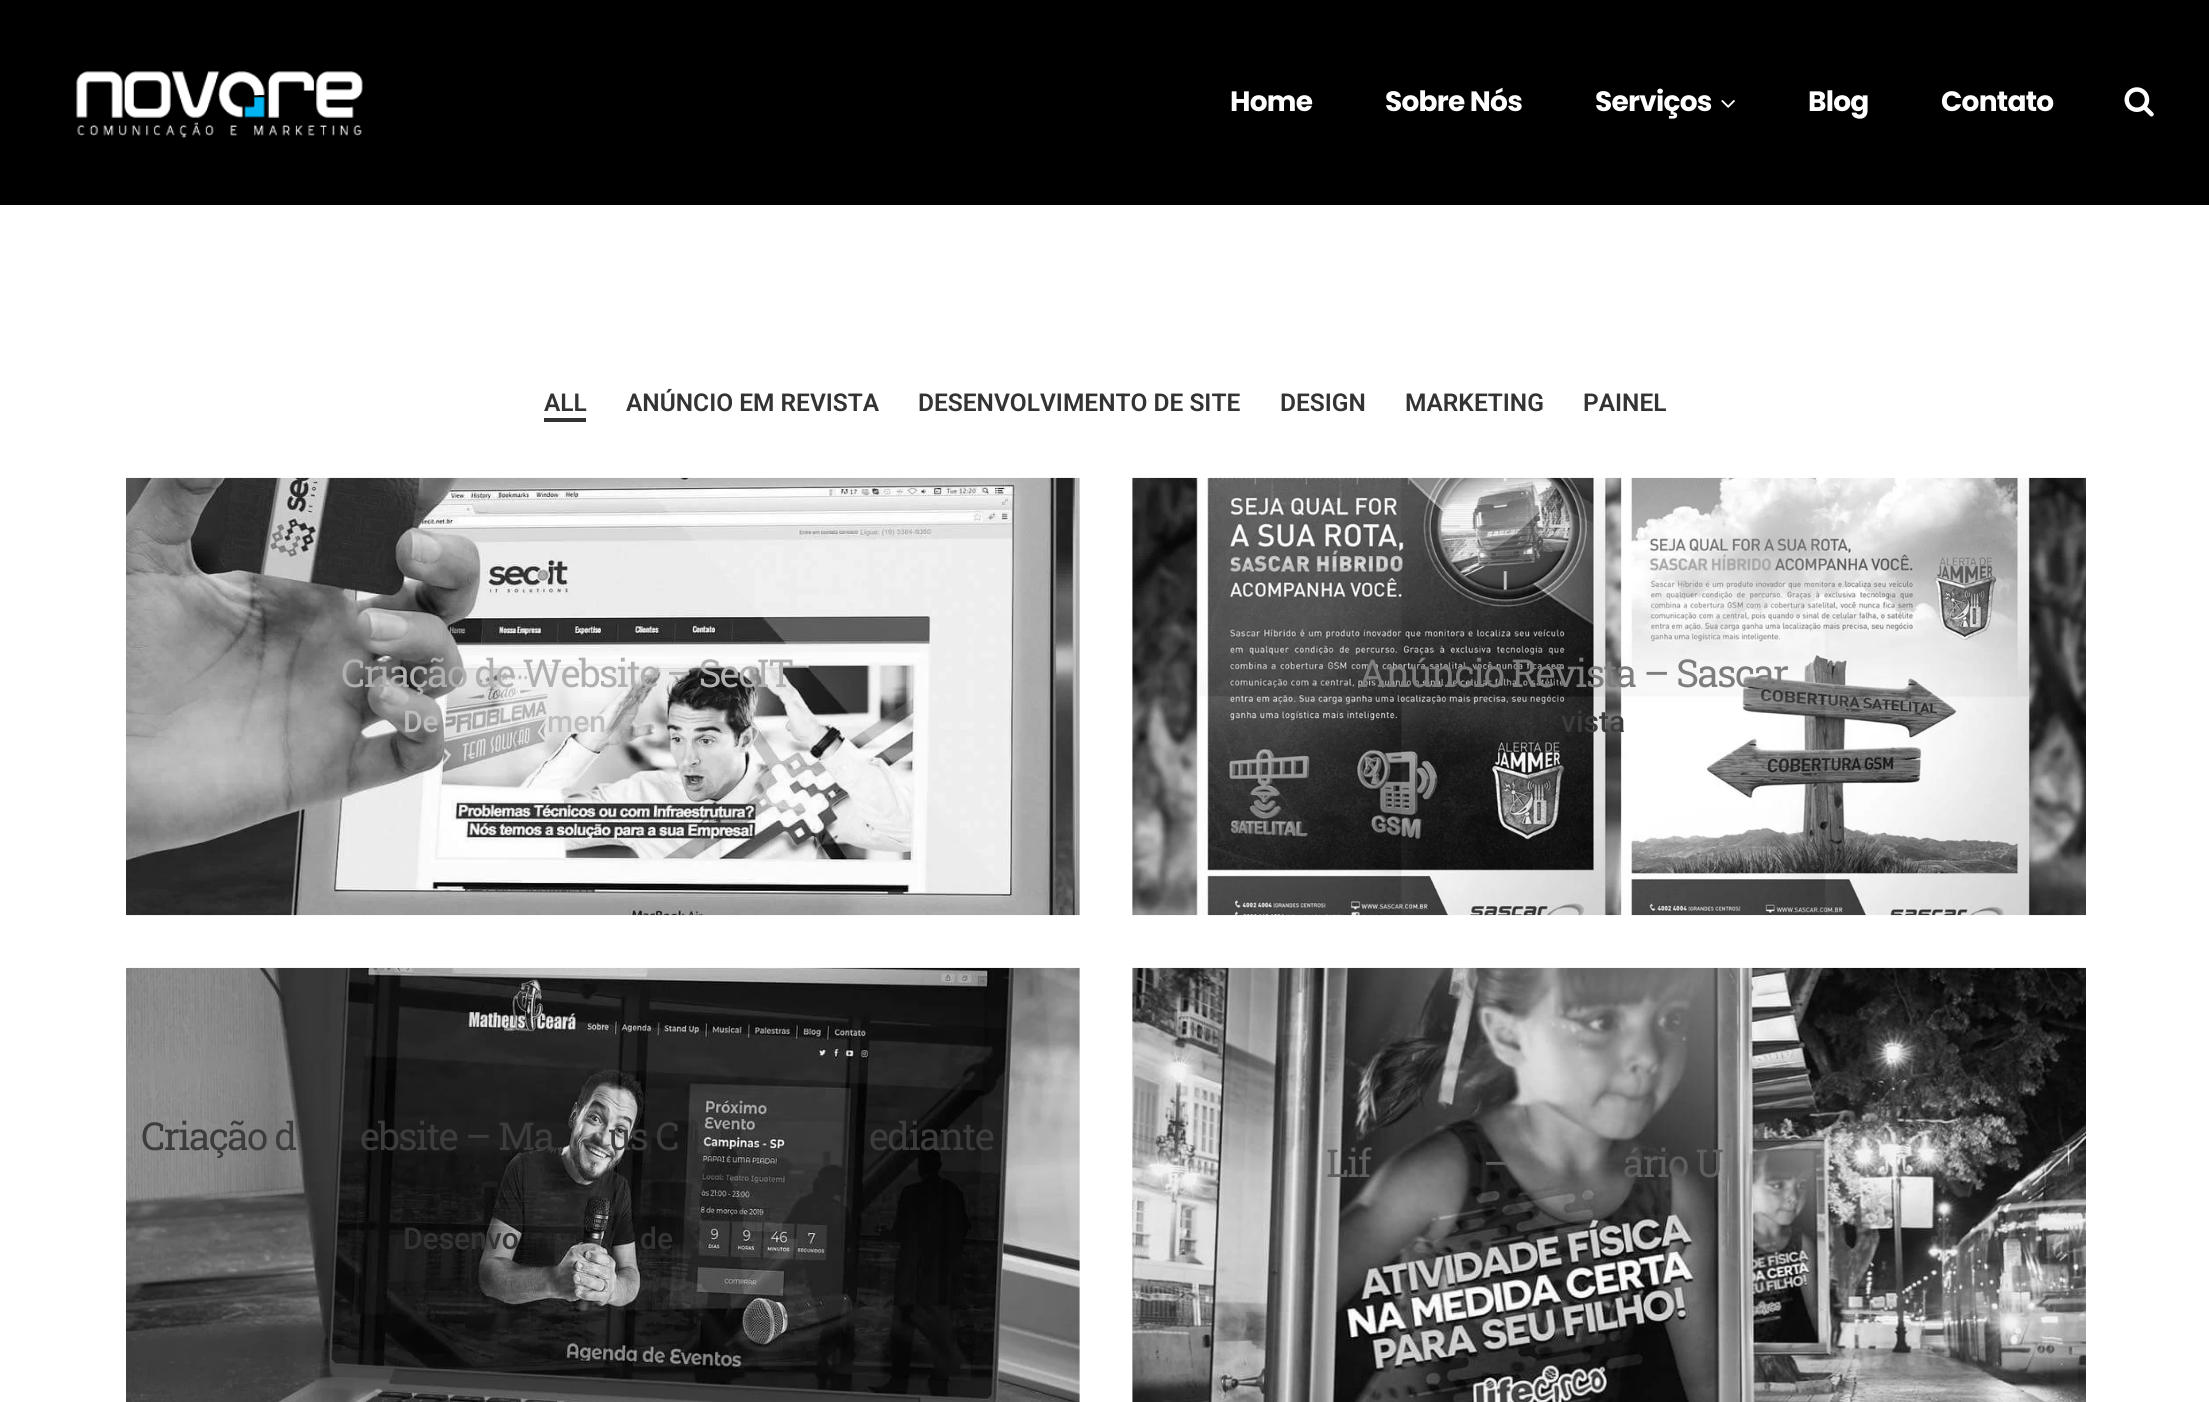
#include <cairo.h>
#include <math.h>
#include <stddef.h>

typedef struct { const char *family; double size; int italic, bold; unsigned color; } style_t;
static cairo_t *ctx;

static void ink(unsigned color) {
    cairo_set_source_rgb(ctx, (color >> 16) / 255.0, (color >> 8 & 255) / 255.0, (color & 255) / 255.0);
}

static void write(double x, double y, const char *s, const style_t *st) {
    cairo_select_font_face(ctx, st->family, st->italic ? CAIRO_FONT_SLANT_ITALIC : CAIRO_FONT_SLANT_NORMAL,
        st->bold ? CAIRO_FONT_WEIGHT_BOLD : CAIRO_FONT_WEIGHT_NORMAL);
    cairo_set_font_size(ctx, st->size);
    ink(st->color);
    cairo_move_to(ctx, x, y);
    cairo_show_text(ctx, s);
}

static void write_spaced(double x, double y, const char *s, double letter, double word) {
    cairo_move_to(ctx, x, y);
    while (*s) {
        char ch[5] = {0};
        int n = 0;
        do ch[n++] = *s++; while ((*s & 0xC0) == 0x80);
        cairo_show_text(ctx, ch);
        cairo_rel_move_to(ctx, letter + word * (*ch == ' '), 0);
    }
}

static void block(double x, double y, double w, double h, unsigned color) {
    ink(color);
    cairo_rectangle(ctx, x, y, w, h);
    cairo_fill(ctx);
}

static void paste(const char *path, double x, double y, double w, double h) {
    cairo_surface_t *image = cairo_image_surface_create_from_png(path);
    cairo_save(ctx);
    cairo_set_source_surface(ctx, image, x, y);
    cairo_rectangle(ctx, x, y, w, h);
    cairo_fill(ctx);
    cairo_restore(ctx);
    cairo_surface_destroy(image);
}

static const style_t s1 = {"Roboto SemiBold", 24.5, 0, 0, 0x333333};
static const style_t s2 = {"Roboto Medium", 30, 0, 0, 0xbebebe};
static const style_t s3 = {"Roboto Medium", 30, 0, 0, 0x3c3c3c};
static const style_t s4 = {"Roboto Medium", 30, 0, 0, 0x333333};

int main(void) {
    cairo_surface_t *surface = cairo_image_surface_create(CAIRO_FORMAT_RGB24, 2209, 1402);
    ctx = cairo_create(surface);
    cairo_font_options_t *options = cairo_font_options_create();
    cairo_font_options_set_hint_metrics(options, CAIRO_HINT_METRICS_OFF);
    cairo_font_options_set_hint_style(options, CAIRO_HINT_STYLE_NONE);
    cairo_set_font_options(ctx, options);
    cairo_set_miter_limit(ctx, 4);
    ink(0xffffff);
    cairo_paint(ctx);
    block(0, 0, 2209, 205, 0x000000);
    paste("pic1.png", 76, 71, 287, 68);
    cairo_select_font_face(ctx, "Poppins", CAIRO_FONT_SLANT_NORMAL, CAIRO_FONT_WEIGHT_BOLD);
    cairo_set_font_size(ctx, 28);
    ink(0xffffff);
    write_spaced(1230, 111, "Home", -0.75, 0);
    write_spaced(1385, 111, "Sobre Nós", -0.75, 0);
    write_spaced(1595, 111, "Serviços", -0.75, 0);
    paste("pic2.png", 1721, 100, 14, 8);
    write_spaced(1808, 111, "Blog", -0.75, 0);
    write_spaced(1941, 111, "Contato", -0.75, 0);
    paste("pic3.png", 2124, 87, 30, 30);
    write(544, 411, "ALL", &s1);
    block(544, 418, 42, 4, 0x333333);
    write(626, 411, "ANÚNCIO EM REVISTA", &s1);
    write(918, 411, "DESENVOLVIMENTO DE SITE", &s1);
    write(1280, 411, "DESIGN", &s1);
    write(1405, 411, "MARKETING", &s1);
    write(1583, 411, "PAINEL", &s1);
    block(1079, 478, 1, 437, 0xf3f3f3);
    paste("pic4.png", 126, 477, 954, 439);
    cairo_select_font_face(ctx, "Roboto Slab", CAIRO_FONT_SLANT_NORMAL, CAIRO_FONT_WEIGHT_NORMAL);
    cairo_set_font_size(ctx, 38.5);
    ink(0xb0b0b0);
    write_spaced(341, 687, "Criação de Website – SecIT", -1.55, 0);
    write(403, 732, "De", &s2);
    write(547, 732, "men", &s2);
    block(1132, 478, 1, 437, 0xf3f3f3);
    paste("pic5.png", 1132, 477, 954, 439);
    cairo_select_font_face(ctx, "Roboto Slab", CAIRO_FONT_SLANT_NORMAL, CAIRO_FONT_WEIGHT_NORMAL);
    cairo_set_font_size(ctx, 38.5);
    ink(0x7d7d7d);
    write_spaced(1358, 687, "Anúncio Revista – Sascar", -1.55, 0);
    write(1561, 732, "vista", &s3);
    block(1079, 968, 1, 434, 0xf3f3f3);
    paste("pic6.png", 126, 967, 954, 435);
    cairo_select_font_face(ctx, "Roboto Slab", CAIRO_FONT_SLANT_NORMAL, CAIRO_FONT_WEIGHT_NORMAL);
    cairo_set_font_size(ctx, 38.5);
    ink(0x3c3c3c);
    write_spaced(141, 1150, "Criação d", -1.55, 0);
    write_spaced(360, 1150, "ebsite – Ma", -1.55, 0);
    write_spaced(608, 1150, "us C", -1.55, 0);
    write_spaced(869, 1150, "ediante", -1.55, 0);
    write(403, 1249, "Desenvo", &s4);
    write(640, 1249, "de", &s4);
    block(1132, 968, 1, 434, 0xf3f3f3);
    paste("pic7.png", 1132, 967, 954, 435);
    cairo_select_font_face(ctx, "Roboto Slab", CAIRO_FONT_SLANT_NORMAL, CAIRO_FONT_WEIGHT_NORMAL);
    cairo_set_font_size(ctx, 38.5);
    ink(0x5f5f5f);
    write_spaced(1326, 1177, "Lif", -1.55, 0);
    write_spaced(1483, 1177, "–", -1.55, 0);
    write_spaced(1623, 1177, "ário U", -1.55, 0);
    cairo_surface_write_to_png(surface, "screenshot.png");
    cairo_font_options_destroy(options);
    cairo_destroy(ctx);
    cairo_surface_destroy(surface);
    return 0;
}
